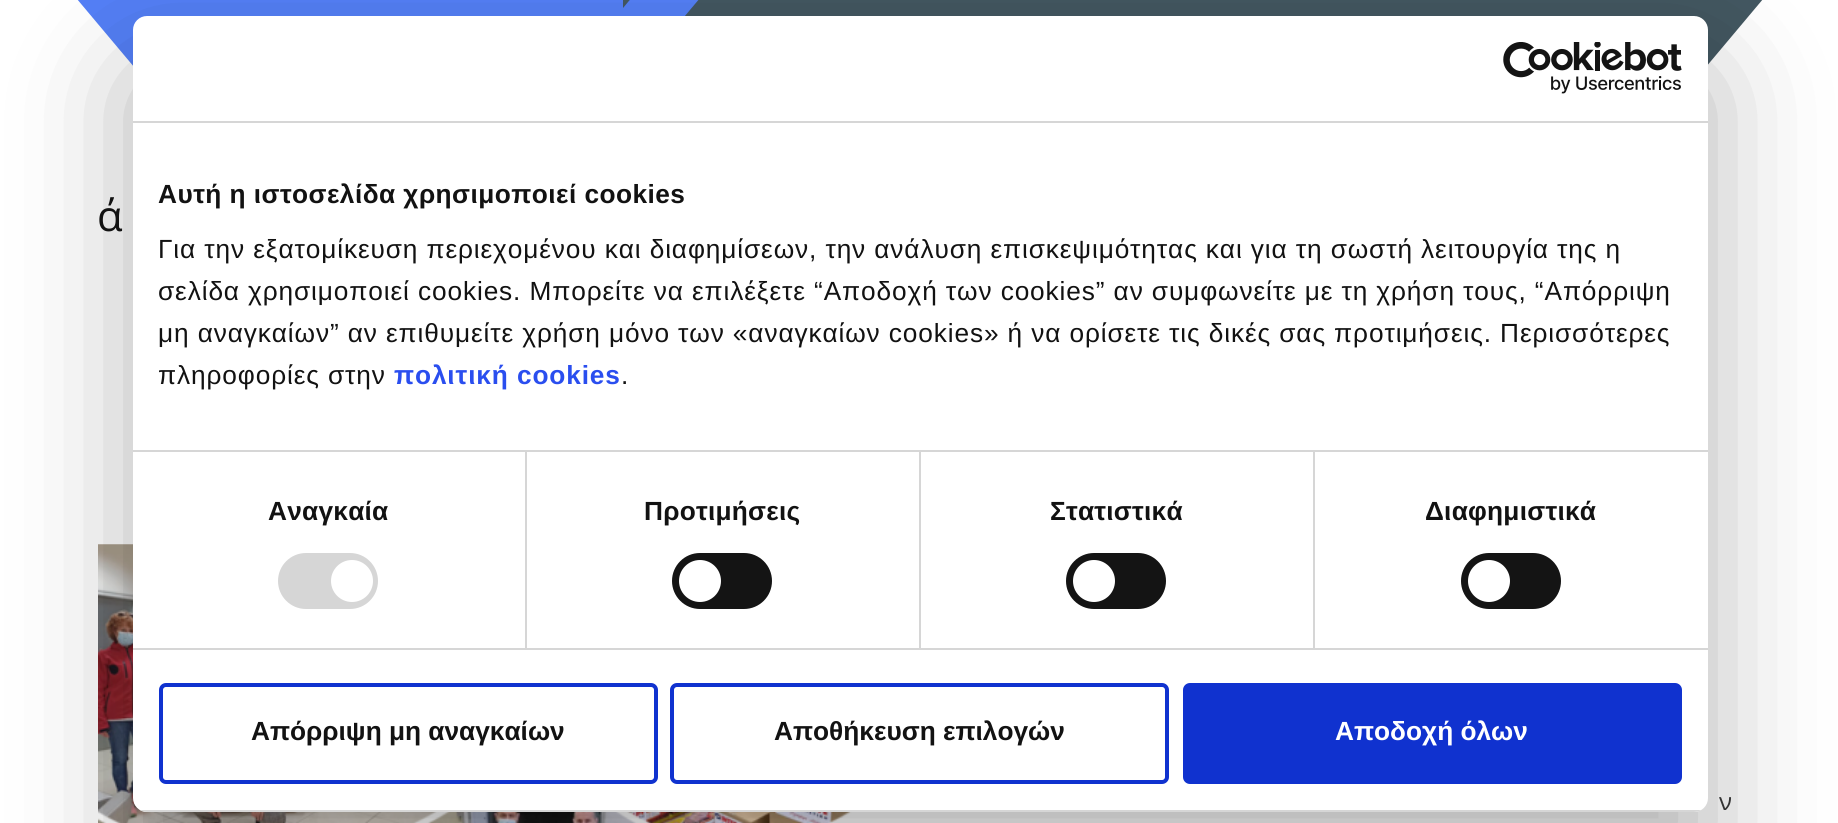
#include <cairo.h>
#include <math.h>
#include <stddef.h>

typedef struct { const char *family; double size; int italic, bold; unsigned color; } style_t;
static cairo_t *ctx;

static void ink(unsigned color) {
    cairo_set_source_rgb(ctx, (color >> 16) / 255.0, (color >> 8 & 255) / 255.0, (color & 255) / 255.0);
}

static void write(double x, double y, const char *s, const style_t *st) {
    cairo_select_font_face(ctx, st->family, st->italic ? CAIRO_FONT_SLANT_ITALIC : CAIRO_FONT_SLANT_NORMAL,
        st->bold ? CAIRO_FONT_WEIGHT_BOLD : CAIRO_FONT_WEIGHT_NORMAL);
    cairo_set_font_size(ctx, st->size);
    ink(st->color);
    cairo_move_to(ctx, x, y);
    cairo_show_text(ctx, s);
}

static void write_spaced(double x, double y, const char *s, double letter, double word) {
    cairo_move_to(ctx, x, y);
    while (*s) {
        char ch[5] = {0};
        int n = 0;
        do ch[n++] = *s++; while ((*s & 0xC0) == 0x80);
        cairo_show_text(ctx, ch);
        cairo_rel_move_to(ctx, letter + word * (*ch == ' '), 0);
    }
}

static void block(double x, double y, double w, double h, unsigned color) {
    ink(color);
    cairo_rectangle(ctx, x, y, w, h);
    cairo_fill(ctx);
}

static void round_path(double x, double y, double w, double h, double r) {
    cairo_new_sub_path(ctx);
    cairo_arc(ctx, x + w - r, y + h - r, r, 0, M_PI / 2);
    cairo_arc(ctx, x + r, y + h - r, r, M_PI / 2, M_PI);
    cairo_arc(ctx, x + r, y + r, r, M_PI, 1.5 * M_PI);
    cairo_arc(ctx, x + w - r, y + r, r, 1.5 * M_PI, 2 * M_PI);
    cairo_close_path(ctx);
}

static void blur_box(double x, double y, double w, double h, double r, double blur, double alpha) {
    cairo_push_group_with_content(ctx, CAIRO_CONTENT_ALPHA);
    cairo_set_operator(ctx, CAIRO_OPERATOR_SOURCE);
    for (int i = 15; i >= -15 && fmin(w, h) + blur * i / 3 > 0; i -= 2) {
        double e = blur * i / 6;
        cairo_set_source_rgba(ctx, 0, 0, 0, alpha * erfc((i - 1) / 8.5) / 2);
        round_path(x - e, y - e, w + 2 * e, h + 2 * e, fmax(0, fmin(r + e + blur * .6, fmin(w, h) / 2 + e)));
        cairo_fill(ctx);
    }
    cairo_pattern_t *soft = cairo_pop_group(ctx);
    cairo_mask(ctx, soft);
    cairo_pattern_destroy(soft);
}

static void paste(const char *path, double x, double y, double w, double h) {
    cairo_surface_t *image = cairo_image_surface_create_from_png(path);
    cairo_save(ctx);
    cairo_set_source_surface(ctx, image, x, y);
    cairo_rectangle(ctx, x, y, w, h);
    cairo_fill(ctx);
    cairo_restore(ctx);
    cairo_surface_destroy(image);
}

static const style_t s1 = {"Liberation Sans", 26.25, 0, 1, 0x121212};
static const style_t s2 = {"Liberation Sans", 26.25, 0, 1, 0xffffff};
static const style_t s3 = {"Open Sans", 42, 0, 0, 0x121212};
static const style_t s4 = {"Open Sans", 24, 0, 0, 0x333333};

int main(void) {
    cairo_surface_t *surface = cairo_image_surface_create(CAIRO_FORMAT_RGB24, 1838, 823);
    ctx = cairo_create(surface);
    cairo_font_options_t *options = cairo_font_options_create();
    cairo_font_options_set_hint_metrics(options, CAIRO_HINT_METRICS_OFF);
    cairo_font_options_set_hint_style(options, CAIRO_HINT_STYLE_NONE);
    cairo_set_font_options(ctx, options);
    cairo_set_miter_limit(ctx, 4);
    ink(0xffffff);
    cairo_paint(ctx);
    block(623, 0, 1050, 16, 0x435761);
    ink(0x5480f7);
    cairo_new_path(ctx);
    cairo_move_to(ctx, 61, -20);
    cairo_line_to(ctx, 113, -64);
    cairo_line_to(ctx, 202, 42);
    cairo_line_to(ctx, 150, 86);
    cairo_close_path(ctx);
    cairo_fill(ctx);
    block(166, 0, 457, 16, 0x5480f7);
    cairo_new_path(ctx);
    cairo_move_to(ctx, 676, -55);
    cairo_line_to(ctx, 716, -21);
    cairo_line_to(ctx, 626, 86);
    cairo_line_to(ctx, 586, 52);
    cairo_close_path(ctx);
    cairo_fill(ctx);
    ink(0x435761);
    cairo_new_path(ctx);
    cairo_move_to(ctx, 1726, -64);
    cairo_line_to(ctx, 1779, -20);
    cairo_line_to(ctx, 1690, 86);
    cairo_line_to(ctx, 1637, 42);
    cairo_close_path(ctx);
    cairo_fill(ctx);
    paste("pic2.png", 98, 544, 797, 279);
    ink(0x000000);
    blur_box(133, 72, 1575, 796, 14, 59.5, 0.3);
    ink(0xffffff);
    round_path(133, 16, 1575, 796, 14);
    cairo_fill(ctx);
    block(133, 121, 1575, 2, 0xd6d6d6);
    paste("pic1.png", 1503, 42, 179, 52);
    block(133, 450, 1575, 2, 0xd6d6d6);
    cairo_select_font_face(ctx, "Liberation Sans", CAIRO_FONT_SLANT_NORMAL, CAIRO_FONT_WEIGHT_BOLD);
    cairo_set_font_size(ctx, 26.25);
    ink(0x121212);
    write_spaced(158, 203, "Αυτή η ιστοσελίδα χρησιμοποιεί cookies", 0.45, 0);
    cairo_select_font_face(ctx, "Liberation Sans", CAIRO_FONT_SLANT_NORMAL, CAIRO_FONT_WEIGHT_NORMAL);
    write_spaced(158, 258, "Για την εξατομίκευση περιεχομένου και διαφημίσεων, την ανάλυση επισκεψιμότητας και για τη σωστή λειτουργία της η", 0.88, 0);
    write_spaced(158, 300, "σελίδα χρησιμοποιεί cookies. Μπορείτε να επιλέξετε “Αποδοχή των cookies” αν συμφωνείτε με τη χρήση τους, “Απόρριψη", 0.88, 0);
    write_spaced(158, 342, "μη αναγκαίων” αν επιθυμείτε χρήση μόνο των «αναγκαίων cookies» ή να ορίσετε τις δικές σας προτιμήσεις. Περισσότερες", 0.88, 0);
    write_spaced(158, 384, "πληροφορίες στην", 0.88, 0);
    cairo_select_font_face(ctx, "Liberation Sans", CAIRO_FONT_SLANT_NORMAL, CAIRO_FONT_WEIGHT_BOLD);
    ink(0x2a4eef);
    write_spaced(394, 384, "πολιτική cookies", 0.88, 0);
    cairo_select_font_face(ctx, "Liberation Sans", CAIRO_FONT_SLANT_NORMAL, CAIRO_FONT_WEIGHT_NORMAL);
    ink(0x121212);
    write_spaced(621, 384, ".", 0.88, 0);
    block(133, 648, 1575, 2, 0xd6d6d6);
    block(525, 452, 2, 196, 0xd6d6d6);
    cairo_select_font_face(ctx, "Liberation Sans", CAIRO_FONT_SLANT_NORMAL, CAIRO_FONT_WEIGHT_BOLD);
    ink(0x121212);
    write_spaced(268, 520, "Αναγκαία", 0.25, 0);
    ink(0xd6d6d6);
    round_path(278, 553, 100, 56, 28);
    cairo_fill(ctx);
    ink(0xffffff);
    cairo_arc(ctx, 352, 581, 21, 0, 2 * M_PI);
    cairo_fill(ctx);
    block(919, 452, 2, 196, 0xd6d6d6);
    ink(0x121212);
    write_spaced(644, 520, "Προτιμήσεις", 0.25, 0);
    ink(0x141414);
    round_path(672, 553, 100, 56, 28);
    cairo_fill(ctx);
    ink(0xffffff);
    cairo_arc(ctx, 700, 581, 21, 0, 2 * M_PI);
    cairo_fill(ctx);
    block(1313, 452, 2, 196, 0xd6d6d6);
    ink(0x121212);
    write_spaced(1050, 520, "Στατιστικά", 0.25, 0);
    ink(0x141414);
    round_path(1066, 553, 100, 56, 28);
    cairo_fill(ctx);
    ink(0xffffff);
    cairo_arc(ctx, 1094, 581, 21, 0, 2 * M_PI);
    cairo_fill(ctx);
    ink(0x121212);
    write_spaced(1425, 520, "Διαφημιστικά", 0.25, 0);
    ink(0x141414);
    round_path(1461, 553, 100, 56, 28);
    cairo_fill(ctx);
    ink(0xffffff);
    cairo_arc(ctx, 1489, 581, 21, 0, 2 * M_PI);
    cairo_fill(ctx);
    cairo_save(ctx);
    round_path(133, 16, 1575, 796, 14);
    cairo_clip(ctx);
    block(133, 810, 1575, 2, 0xd6d6d6);
    cairo_restore(ctx);
    round_path(161, 685, 495, 97, 5);
    ink(0x1032cf);
    cairo_set_line_width(ctx, 4);
    cairo_stroke(ctx);
    write(251, 740, "Απόρριψη μη αναγκαίων", &s1);
    round_path(672, 685, 495, 97, 5);
    ink(0x1032cf);
    cairo_stroke(ctx);
    write(774, 740, "Αποθήκευση επιλογών", &s1);
    ink(0x1032cf);
    round_path(1185, 685, 495, 97, 5);
    cairo_fill_preserve(ctx);
    cairo_stroke(ctx);
    write(1335, 740, "Αποδοχή όλων", &s2);
    write(97, 231, "ά", &s3);
    write(1719, 810, "ν", &s4);
    cairo_surface_write_to_png(surface, "screenshot.png");
    cairo_font_options_destroy(options);
    cairo_destroy(ctx);
    cairo_surface_destroy(surface);
    return 0;
}
